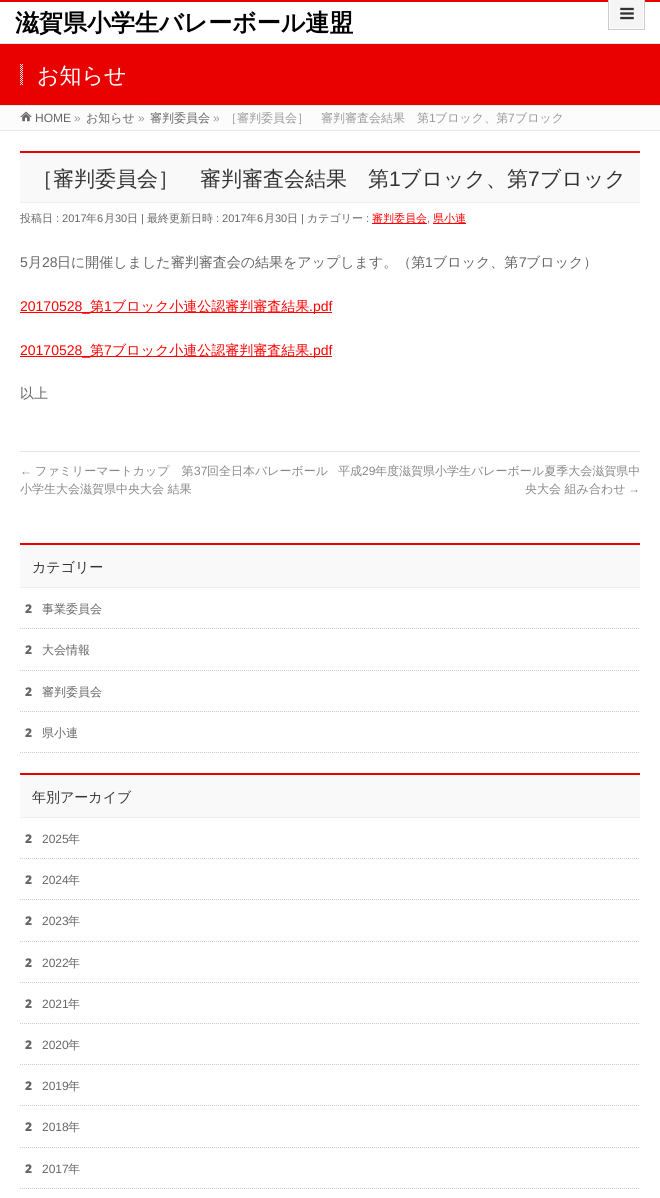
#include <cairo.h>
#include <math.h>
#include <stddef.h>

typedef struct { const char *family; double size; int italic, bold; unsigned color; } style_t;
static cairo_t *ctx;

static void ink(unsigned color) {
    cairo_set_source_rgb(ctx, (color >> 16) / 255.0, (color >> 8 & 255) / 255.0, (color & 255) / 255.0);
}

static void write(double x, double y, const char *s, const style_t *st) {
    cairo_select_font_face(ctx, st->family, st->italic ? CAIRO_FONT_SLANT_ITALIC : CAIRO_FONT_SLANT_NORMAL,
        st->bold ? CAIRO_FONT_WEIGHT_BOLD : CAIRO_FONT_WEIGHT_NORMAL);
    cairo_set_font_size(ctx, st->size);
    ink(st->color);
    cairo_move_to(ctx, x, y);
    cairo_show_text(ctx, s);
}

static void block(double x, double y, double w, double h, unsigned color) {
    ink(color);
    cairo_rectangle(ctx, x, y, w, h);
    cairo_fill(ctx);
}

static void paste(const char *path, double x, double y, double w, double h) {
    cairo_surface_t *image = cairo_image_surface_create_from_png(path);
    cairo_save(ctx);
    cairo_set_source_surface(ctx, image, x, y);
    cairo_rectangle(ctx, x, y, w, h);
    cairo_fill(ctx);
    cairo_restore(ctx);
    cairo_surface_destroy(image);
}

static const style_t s1 = {"WenQuanYi Zen Hei", 24, 0, 1, 0x000000};
static const style_t s2 = {"WenQuanYi Zen Hei Medium", 22, 0, 0, 0xffffff};
static const style_t s3 = {"Liberation Sans", 12, 0, 0, 0x666666};
static const style_t s4 = {"Liberation Sans", 12, 0, 0, 0x999999};
static const style_t s5 = {"WenQuanYi Zen Hei Medium", 12, 0, 0, 0x666666};
static const style_t s6 = {"WenQuanYi Zen Hei Medium", 12, 0, 0, 0x999999};
static const style_t s7 = {"WenQuanYi Zen Hei Medium", 21, 0, 0, 0x333333};
static const style_t s8 = {"Liberation Sans", 21, 0, 0, 0x333333};
static const style_t s9 = {"WenQuanYi Zen Hei Medium", 11, 0, 0, 0x666666};
static const style_t s10 = {"Liberation Sans", 11, 0, 0, 0x666666};
static const style_t s11 = {"WenQuanYi Zen Hei Medium", 11, 0, 0, 0xff0000};
static const style_t s12 = {"Liberation Sans", 14, 0, 0, 0x666666};
static const style_t s13 = {"WenQuanYi Zen Hei Medium", 14, 0, 0, 0x666666};
static const style_t s14 = {"Liberation Sans", 14, 0, 0, 0xff0000};
static const style_t s15 = {"WenQuanYi Zen Hei Medium", 14, 0, 0, 0xff0000};
static const style_t s16 = {"Liberation Sans", 12, 0, 0, 0x888888};
static const style_t s17 = {"WenQuanYi Zen Hei Medium", 12, 0, 0, 0x888888};
static const style_t s18 = {"WenQuanYi Zen Hei Medium", 14, 0, 0, 0x333333};
static const style_t s19 = {"Noto Sans Black", 12, 0, 0, 0x666666};

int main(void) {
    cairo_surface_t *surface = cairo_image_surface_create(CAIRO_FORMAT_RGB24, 660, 1198);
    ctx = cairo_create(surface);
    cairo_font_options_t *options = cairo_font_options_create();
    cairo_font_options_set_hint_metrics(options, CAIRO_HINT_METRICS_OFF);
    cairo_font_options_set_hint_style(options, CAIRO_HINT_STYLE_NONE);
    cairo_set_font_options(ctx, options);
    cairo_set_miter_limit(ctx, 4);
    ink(0xffffff);
    cairo_paint(ctx);
    block(0, 0, 660, 2, 0xe90000);
    write(15, 31, "滋賀県小学生バレーボール連盟", &s1);
    ink(0xf5f5f5);
    cairo_rectangle(ctx, 609.5, -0.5, 34, 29);
    cairo_fill_preserve(ctx);
    ink(0xfefefe);
    cairo_set_line_width(ctx, 1);
    cairo_stroke(ctx);
    cairo_rectangle(ctx, 608.5, -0.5, 36, 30);
    ink(0xcccccc);
    cairo_stroke(ctx);
    paste("pic1.png", 620, 7, 14, 13);
    block(0, 44, 660, 61, 0xe90000);
    block(0, 43, 660, 1, 0xe9e9e9);
    block(0, 105, 660, 1, 0xe9e9e9);
    paste("pic2.png", 20, 64, 3, 21);
    write(37, 83, "お知らせ", &s2);
    block(0, 106, 660, 24, 0xfcfcfc);
    paste("pic3.png", 20, 111, 12, 11);
    write(35, 122, "HOME", &s3);
    write(74, 122, "»", &s4);
    write(86, 122, "お知らせ", &s5);
    write(138, 122, "»", &s4);
    write(150, 122, "審判委員会", &s5);
    write(213, 122, "»", &s4);
    write(225, 122, "［審判委員会］　審判審査会結果　第", &s6);
    write(429, 122, "1", &s4);
    write(435, 122, "ブロック、第", &s6);
    write(508, 122, "7", &s4);
    write(515, 122, "ブロック", &s6);
    block(0, 130, 660, 1, 0xe9e9e9);
    block(20, 153, 620, 49, 0xf9f9f9);
    block(20, 151, 620, 2, 0xe90000);
    block(20, 202, 620, 1, 0xefefef);
    write(32, 186, "［審判委員会］　審判審査会結果　第", &s7);
    write(389, 186, "1", &s8);
    write(400, 186, "ブロック、第", &s7);
    write(528, 186, "7", &s8);
    write(540, 186, "ブロック", &s7);
    write(20, 222, "投稿日", &s9);
    write(56, 222, ": 2017", &s10);
    write(86, 222, "年", &s9);
    write(97, 222, "6", &s10);
    write(104, 222, "月", &s9);
    write(115, 222, "30", &s10);
    write(127, 222, "日", &s9);
    write(141, 222, "|", &s10);
    write(147, 222, "最終更新日時", &s9);
    write(216, 222, ": 2017", &s10);
    write(246, 222, "年", &s9);
    write(257, 222, "6", &s10);
    write(264, 222, "月", &s9);
    write(275, 222, "30", &s10);
    write(287, 222, "日", &s9);
    write(301, 222, "|", &s10);
    write(307, 222, "カテゴリー", &s9);
    write(366, 222, ":", &s10);
    block(372, 223, 55, 1, 0xff0000);
    write(372, 222, "審判委員会", &s11);
    write(427, 222, ",", &s10);
    block(433, 223, 33, 1, 0xff0000);
    write(433, 222, "県小連", &s11);
    write(20, 267, "5", &s12);
    write(28, 267, "月", &s13);
    write(42, 267, "28", &s12);
    write(57, 267, "日に開催しました審判審査会の結果をアップします。（第", &s13);
    write(425, 267, "1", &s12);
    write(433, 267, "ブロック、第", &s13);
    write(519, 267, "7", &s12);
    write(526, 267, "ブロック）", &s13);
    block(20, 312, 312, 1, 0xff0000);
    write(20, 311, "20170528_", &s14);
    write(90, 311, "第", &s15);
    write(104, 311, "1", &s14);
    write(112, 311, "ブロック小連公認審判審査結果", &s15);
    write(309, 311, ".pdf", &s14);
    block(20, 356, 312, 1, 0xff0000);
    write(20, 355, "20170528_", &s14);
    write(90, 355, "第", &s15);
    write(104, 355, "7", &s14);
    write(112, 355, "ブロック小連公認審判審査結果", &s15);
    write(309, 355, ".pdf", &s14);
    write(20, 398, "以上", &s13);
    block(20, 451, 620, 1, 0xe5e5e5);
    write(20, 475, "←", &s16);
    write(35, 475, "ファミリーマートカップ　第", &s17);
    write(194, 475, "37", &s16);
    write(207, 475, "回全日本バレーボール", &s17);
    write(20, 493, "小学生大会滋賀県中央大会 結果", &s17);
    write(338, 475, "平成", &s17);
    write(362, 475, "29", &s16);
    write(375, 475, "年度滋賀県小学生バレーボール夏季大会滋賀県中", &s17);
    write(525, 493, "央大会 組み合わせ", &s17);
    write(628, 493, "→", &s16);
    block(20, 545, 620, 42, 0xf9f9f9);
    block(20, 543, 620, 2, 0xe90000);
    block(20, 587, 620, 1, 0xefefef);
    write(32, 572, "カテゴリー", &s18);
    cairo_new_path(ctx);
    cairo_move_to(ctx, 20, 628.5);
    cairo_line_to(ctx, 640, 628.5);
    ink(0xcccccc);
    cairo_set_dash(ctx, (double[]){1, 1}, 2, 0);
    cairo_stroke(ctx);
    write(25, 613, "2", &s19);
    write(42, 613, "事業委員会", &s5);
    cairo_new_path(ctx);
    cairo_move_to(ctx, 20, 670.5);
    cairo_line_to(ctx, 640, 670.5);
    ink(0xcccccc);
    cairo_stroke(ctx);
    write(25, 654, "2", &s19);
    write(42, 654, "大会情報", &s5);
    cairo_new_path(ctx);
    cairo_move_to(ctx, 20, 711.5);
    cairo_line_to(ctx, 640, 711.5);
    ink(0xcccccc);
    cairo_stroke(ctx);
    write(25, 696, "2", &s19);
    write(42, 696, "審判委員会", &s5);
    cairo_new_path(ctx);
    cairo_move_to(ctx, 20, 752.5);
    cairo_line_to(ctx, 640, 752.5);
    ink(0xcccccc);
    cairo_stroke(ctx);
    write(25, 737, "2", &s19);
    write(42, 737, "県小連", &s5);
    block(20, 775, 620, 42, 0xf9f9f9);
    block(20, 773, 620, 2, 0xe90000);
    block(20, 817, 620, 1, 0xefefef);
    write(32, 802, "年別アーカイブ", &s18);
    cairo_new_path(ctx);
    cairo_move_to(ctx, 20, 858.5);
    cairo_line_to(ctx, 640, 858.5);
    ink(0xcccccc);
    cairo_stroke(ctx);
    write(25, 843, "2", &s19);
    write(42, 843, "2025", &s3);
    write(68, 843, "年", &s5);
    cairo_new_path(ctx);
    cairo_move_to(ctx, 20, 899.5);
    cairo_line_to(ctx, 640, 899.5);
    ink(0xcccccc);
    cairo_stroke(ctx);
    write(25, 884, "2", &s19);
    write(42, 884, "2024", &s3);
    write(68, 884, "年", &s5);
    cairo_new_path(ctx);
    cairo_move_to(ctx, 20, 941.5);
    cairo_line_to(ctx, 640, 941.5);
    ink(0xcccccc);
    cairo_stroke(ctx);
    write(25, 925, "2", &s19);
    write(42, 925, "2023", &s3);
    write(68, 925, "年", &s5);
    cairo_new_path(ctx);
    cairo_move_to(ctx, 20, 982.5);
    cairo_line_to(ctx, 640, 982.5);
    ink(0xcccccc);
    cairo_stroke(ctx);
    write(25, 967, "2", &s19);
    write(42, 967, "2022", &s3);
    write(68, 967, "年", &s5);
    cairo_new_path(ctx);
    cairo_move_to(ctx, 20, 1023.5);
    cairo_line_to(ctx, 640, 1023.5);
    ink(0xcccccc);
    cairo_stroke(ctx);
    write(25, 1008, "2", &s19);
    write(42, 1008, "2021", &s3);
    write(68, 1008, "年", &s5);
    cairo_new_path(ctx);
    cairo_move_to(ctx, 20, 1064.5);
    cairo_line_to(ctx, 640, 1064.5);
    ink(0xcccccc);
    cairo_stroke(ctx);
    write(25, 1049, "2", &s19);
    write(42, 1049, "2020", &s3);
    write(68, 1049, "年", &s5);
    cairo_new_path(ctx);
    cairo_move_to(ctx, 20, 1105.5);
    cairo_line_to(ctx, 640, 1105.5);
    ink(0xcccccc);
    cairo_stroke(ctx);
    write(25, 1090, "2", &s19);
    write(42, 1090, "2019", &s3);
    write(68, 1090, "年", &s5);
    cairo_new_path(ctx);
    cairo_move_to(ctx, 20, 1147.5);
    cairo_line_to(ctx, 640, 1147.5);
    ink(0xcccccc);
    cairo_stroke(ctx);
    write(25, 1131, "2", &s19);
    write(42, 1131, "2018", &s3);
    write(68, 1131, "年", &s5);
    cairo_new_path(ctx);
    cairo_move_to(ctx, 20, 1188.5);
    cairo_line_to(ctx, 640, 1188.5);
    ink(0xcccccc);
    cairo_stroke(ctx);
    write(25, 1173, "2", &s19);
    write(42, 1173, "2017", &s3);
    write(68, 1173, "年", &s5);
    cairo_surface_write_to_png(surface, "screenshot.png");
    cairo_font_options_destroy(options);
    cairo_destroy(ctx);
    cairo_surface_destroy(surface);
    return 0;
}
